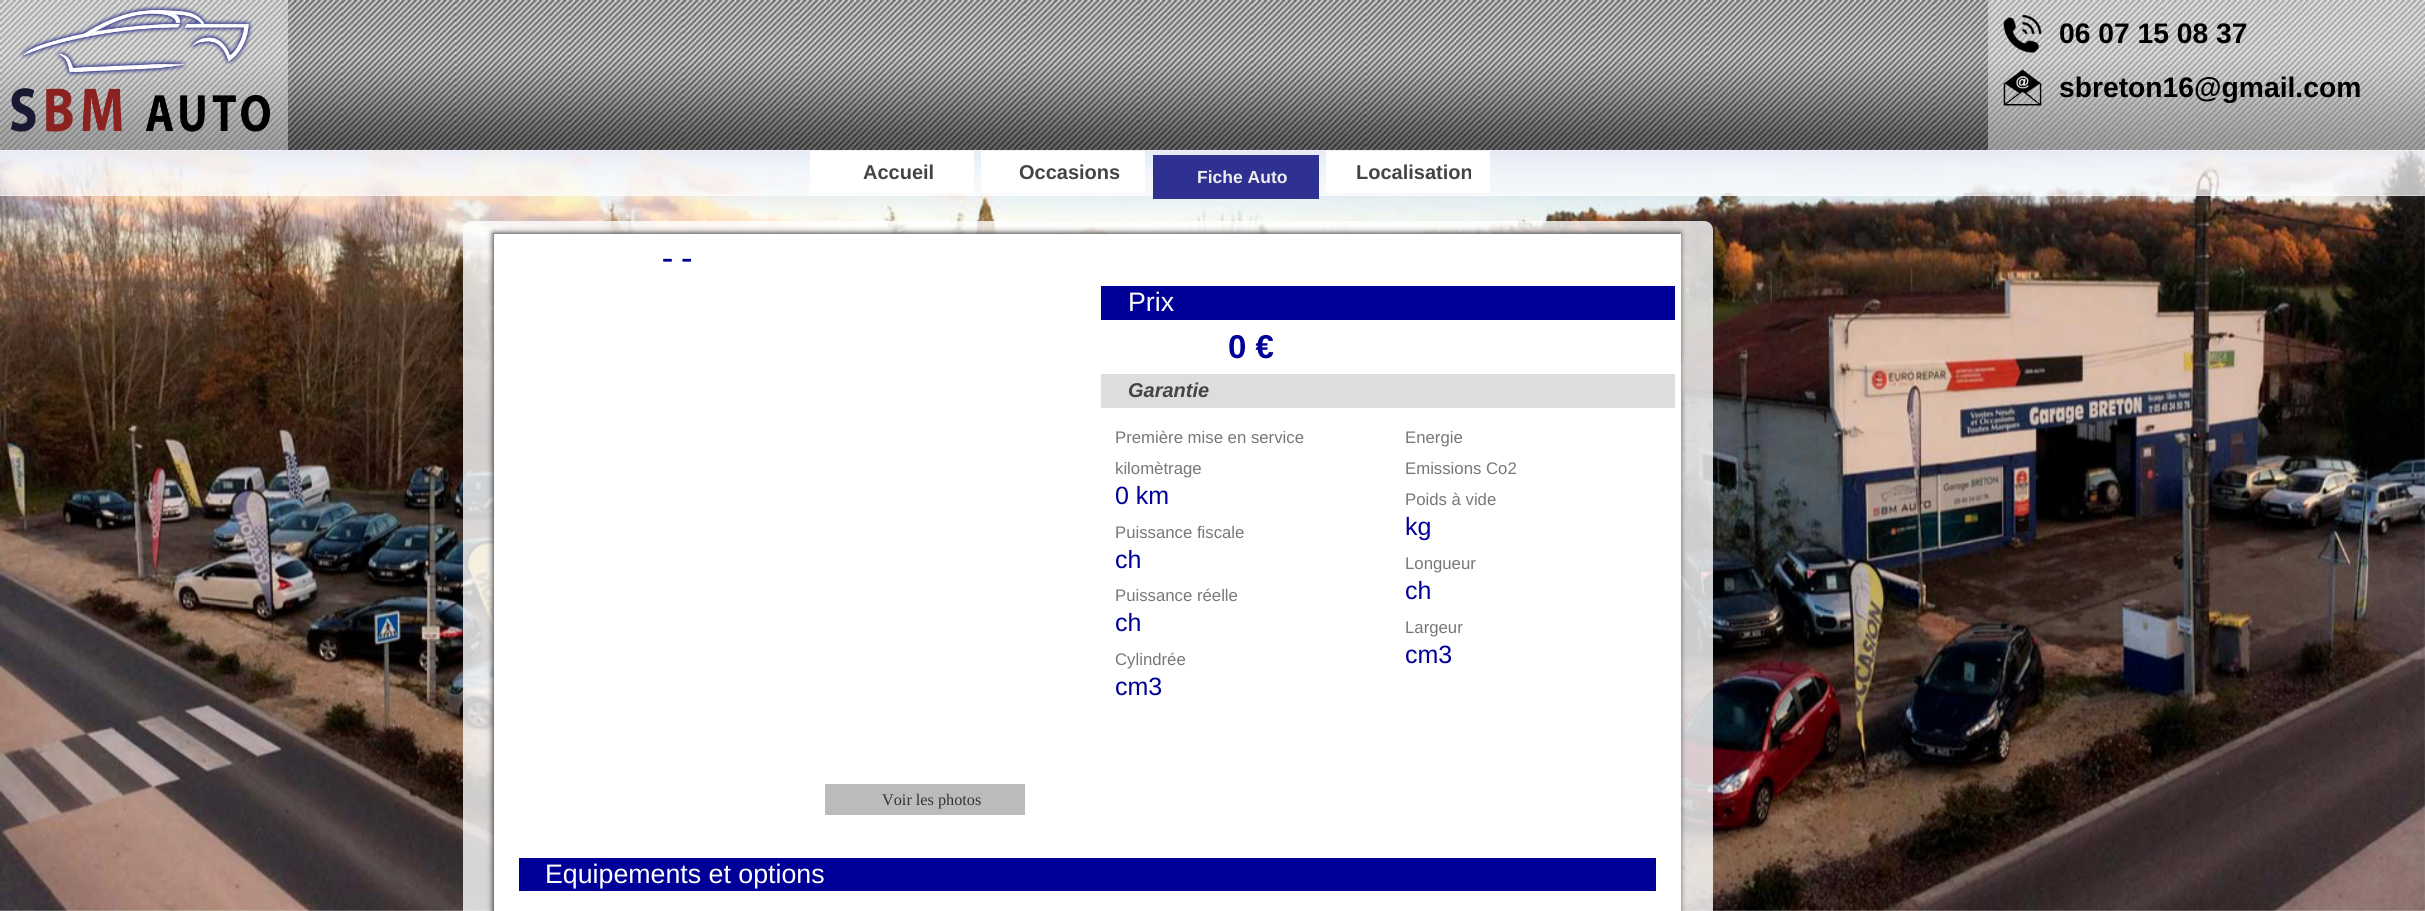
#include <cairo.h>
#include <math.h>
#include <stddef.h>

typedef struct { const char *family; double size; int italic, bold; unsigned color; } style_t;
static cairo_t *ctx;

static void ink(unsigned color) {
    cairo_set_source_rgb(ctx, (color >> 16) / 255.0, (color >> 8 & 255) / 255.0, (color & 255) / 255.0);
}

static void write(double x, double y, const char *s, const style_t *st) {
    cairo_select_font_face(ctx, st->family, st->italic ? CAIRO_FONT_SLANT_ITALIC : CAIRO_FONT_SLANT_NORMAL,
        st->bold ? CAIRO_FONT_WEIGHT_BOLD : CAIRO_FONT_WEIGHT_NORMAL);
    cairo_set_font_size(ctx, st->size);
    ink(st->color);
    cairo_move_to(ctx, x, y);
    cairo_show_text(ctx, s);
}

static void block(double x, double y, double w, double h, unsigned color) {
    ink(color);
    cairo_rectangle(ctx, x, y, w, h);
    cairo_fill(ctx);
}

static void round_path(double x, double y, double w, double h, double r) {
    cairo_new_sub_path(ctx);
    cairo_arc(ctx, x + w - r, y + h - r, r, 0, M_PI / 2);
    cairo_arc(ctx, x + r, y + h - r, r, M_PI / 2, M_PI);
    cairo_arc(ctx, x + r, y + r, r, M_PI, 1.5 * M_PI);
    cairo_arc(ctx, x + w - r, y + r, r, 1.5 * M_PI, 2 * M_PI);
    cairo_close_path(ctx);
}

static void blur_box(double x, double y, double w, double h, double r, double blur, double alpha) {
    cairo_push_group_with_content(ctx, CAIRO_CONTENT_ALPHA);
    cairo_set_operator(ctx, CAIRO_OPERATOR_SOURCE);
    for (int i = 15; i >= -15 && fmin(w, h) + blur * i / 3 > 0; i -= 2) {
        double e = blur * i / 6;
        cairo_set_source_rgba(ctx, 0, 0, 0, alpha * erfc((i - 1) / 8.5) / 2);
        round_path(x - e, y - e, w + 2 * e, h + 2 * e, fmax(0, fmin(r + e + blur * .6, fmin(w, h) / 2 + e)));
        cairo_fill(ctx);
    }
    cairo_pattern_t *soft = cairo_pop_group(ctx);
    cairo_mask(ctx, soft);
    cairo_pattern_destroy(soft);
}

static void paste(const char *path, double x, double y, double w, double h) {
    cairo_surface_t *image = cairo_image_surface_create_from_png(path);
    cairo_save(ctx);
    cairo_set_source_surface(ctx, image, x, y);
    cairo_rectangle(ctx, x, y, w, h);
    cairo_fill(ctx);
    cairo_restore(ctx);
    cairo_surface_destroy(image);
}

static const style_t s1 = {"Liberation Sans", 28.25, 0, 1, 0x000000};
static const style_t s2 = {"Liberation Sans", 20, 0, 1, 0x444444};
static const style_t s3 = {"Liberation Sans", 17.5, 0, 1, 0xeeeeee};
static const style_t s4 = {"Liberation Serif", 33, 0, 1, 0x000099};
static const style_t s5 = {"Liberation Sans", 26.75, 0, 0, 0xffffff};
static const style_t s6 = {"Liberation Sans", 33, 0, 1, 0x000099};
static const style_t s7 = {"Liberation Sans", 20, 1, 1, 0x444444};
static const style_t s8 = {"Liberation Sans", 16.75, 0, 0, 0x777777};
static const style_t s9 = {"Liberation Sans", 25, 0, 0, 0x000099};
static const style_t s10 = {"Liberation Serif", 16.25, 0, 0, 0x333333};

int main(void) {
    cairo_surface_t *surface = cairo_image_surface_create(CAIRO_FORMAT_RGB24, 2425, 911);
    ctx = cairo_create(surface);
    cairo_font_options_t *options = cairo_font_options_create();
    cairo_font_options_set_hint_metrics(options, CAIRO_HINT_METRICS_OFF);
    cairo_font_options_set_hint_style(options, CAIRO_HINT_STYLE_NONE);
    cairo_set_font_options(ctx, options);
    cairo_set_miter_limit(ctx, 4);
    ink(0xffffff);
    cairo_paint(ctx);
    paste("pic1.png", 0, 150, 2425, 761);
    paste("pic2.png", 0, 0, 2425, 150);
    cairo_set_source_rgba(ctx, 1, 1, 1, 0.4);
    cairo_rectangle(ctx, 0, 0, 288, 150);
    cairo_fill(ctx);
    paste("pic3.png", 10, 6, 260, 126);
    cairo_rectangle(ctx, 1988, 0, 437, 150);
    cairo_fill(ctx);
    paste("pic4.png", 2003, 15, 39, 38);
    write(2059, 43, "06 07 15 08 37", &s1);
    paste("pic5.png", 2003, 69, 39, 37);
    write(2059, 97, "sbreton16@gmail.com", &s1);
    cairo_set_source_rgba(ctx, 1, 1, 1, 0.8);
    cairo_rectangle(ctx, 0, 150, 2425, 1);
    cairo_fill(ctx);
    cairo_set_source_rgba(ctx, 1, 1, 1, 0.7);
    cairo_rectangle(ctx, 0, 151, 2425, 44);
    cairo_fill(ctx);
    block(810, 151, 164, 42, 0xffffff);
    write(863, 179, "Accueil", &s2);
    block(981, 151, 164, 42, 0xffffff);
    write(1019, 179, "Occasions", &s2);
    cairo_set_source_rgba(ctx, 1, 1, 1, 0.8);
    cairo_rectangle(ctx, 0, 195, 2425, 1);
    cairo_fill(ctx);
    block(1153, 155, 166, 44, 0x2e3192);
    write(1197, 183, "Fiche Auto", &s3);
    block(1326, 151, 164, 42, 0xffffff);
    write(1356, 179, "Localisation", &s2);
    cairo_set_source_rgba(ctx, 1, 1, 1, 0.8);
    round_path(463, 221, 1250, 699, 9);
    cairo_fill(ctx);
    ink(0x333333);
    blur_box(493, 233, 1187, 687, 0, 3, 1);
    block(494, 234, 1187, 677, 0xffffff);
    write(662, 268, "- -", &s4);
    block(1101, 286, 574, 34, 0x000099);
    write(1128, 311, "Prix", &s5);
    write(1228, 358, "0 €", &s6);
    block(1101, 374, 574, 34, 0xdddddd);
    write(1128, 397, "Garantie", &s7);
    write(1115, 443, "Première mise en service", &s8);
    write(1115, 474, "kilomètrage", &s8);
    write(1115, 504, "0 km", &s9);
    write(1115, 538, "Puissance fiscale", &s8);
    write(1115, 568, "ch", &s9);
    write(1115, 601, "Puissance réelle", &s8);
    write(1115, 631, "ch", &s9);
    write(1115, 665, "Cylindrée", &s8);
    write(1115, 695, "cm3", &s9);
    write(1405, 443, "Energie", &s8);
    write(1405, 474, "Emissions Co2", &s8);
    write(1405, 505, "Poids à vide", &s8);
    write(1405, 535, "kg", &s9);
    write(1405, 569, "Longueur", &s8);
    write(1405, 599, "ch", &s9);
    write(1405, 633, "Largeur", &s8);
    write(1405, 663, "cm3", &s9);
    block(825, 784, 200, 31, 0xbbbbbb);
    write(882, 805, "Voir les photos", &s10);
    block(519, 858, 1137, 33, 0x000099);
    write(545, 883, "Equipements et options", &s5);
    cairo_surface_write_to_png(surface, "screenshot.png");
    cairo_font_options_destroy(options);
    cairo_destroy(ctx);
    cairo_surface_destroy(surface);
    return 0;
}
